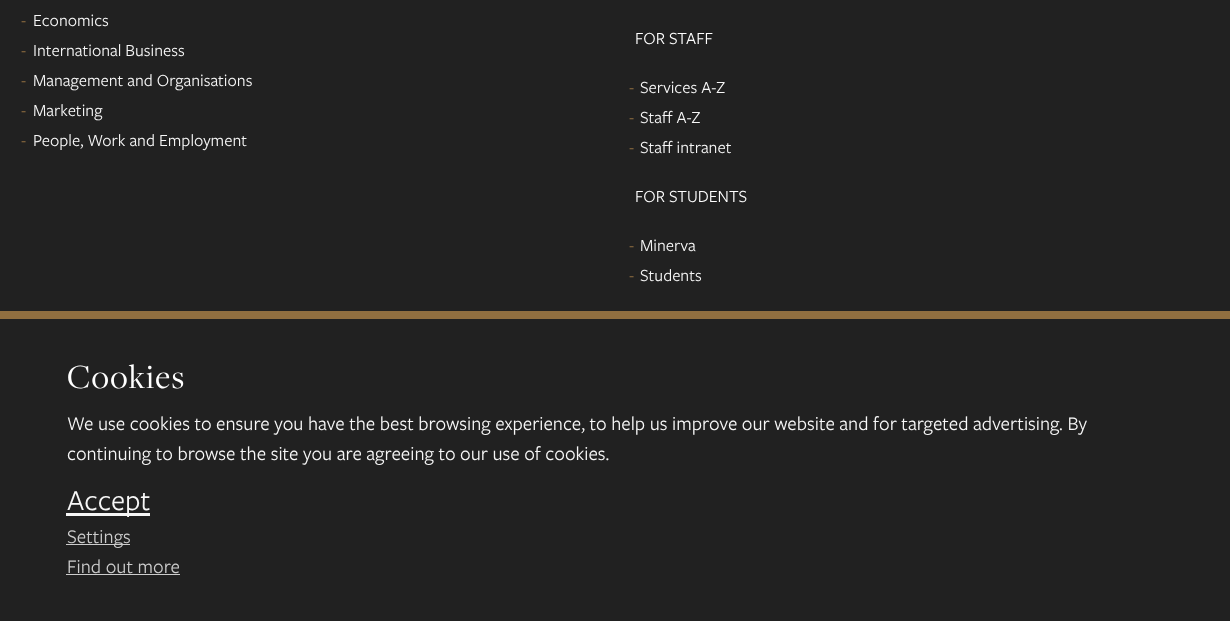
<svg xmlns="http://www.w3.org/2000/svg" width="1230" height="621">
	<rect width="100%" height="100%" fill="#212121" />
	<text x="21" y="26" font-family="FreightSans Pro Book" font-size="17.5" fill="#916F40">-</text>
	<text x="33" y="26" font-family="FreightSans Pro Book" font-size="17.5" fill="#F7F7F7">Economics</text>
	<text x="21" y="56" font-family="FreightSans Pro Book" font-size="17.5" fill="#916F40">-</text>
	<text x="33" y="56" font-family="FreightSans Pro Book" font-size="17.5" fill="#F7F7F7">International Business</text>
	<text x="21" y="86" font-family="FreightSans Pro Book" font-size="17.5" fill="#916F40">-</text>
	<text x="33" y="86" font-family="FreightSans Pro Book" font-size="17.5" fill="#F7F7F7">Management and Organisations</text>
	<text x="21" y="116" font-family="FreightSans Pro Book" font-size="17.5" fill="#916F40">-</text>
	<text x="33" y="116" font-family="FreightSans Pro Book" font-size="17.5" fill="#F7F7F7">Marketing</text>
	<text x="21" y="146" font-family="FreightSans Pro Book" font-size="17.5" fill="#916F40">-</text>
	<text x="33" y="146" font-family="FreightSans Pro Book" font-size="17.5" fill="#F7F7F7">People, Work and Employment</text>
	<text x="635" y="44" font-family="FreightSans Pro Book" font-size="17.5" fill="#FFFFFF">FOR STAFF</text>
	<text x="629" y="93" font-family="FreightSans Pro Book" font-size="17.5" fill="#916F40">-</text>
	<text x="640" y="93" font-family="FreightSans Pro Book" font-size="17.5" fill="#F7F7F7">Services A-Z</text>
	<text x="629" y="123" font-family="FreightSans Pro Book" font-size="17.5" fill="#916F40">-</text>
	<text x="640" y="123" font-family="FreightSans Pro Book" font-size="17.5" fill="#F7F7F7">Staff A-Z</text>
	<text x="629" y="153" font-family="FreightSans Pro Book" font-size="17.5" fill="#916F40">-</text>
	<text x="640" y="153" font-family="FreightSans Pro Book" font-size="17.5" fill="#F7F7F7">Staff intranet</text>
	<text x="635" y="202" font-family="FreightSans Pro Book" font-size="17.5" fill="#FFFFFF">FOR STUDENTS</text>
	<text x="629" y="251" font-family="FreightSans Pro Book" font-size="17.5" fill="#916F40">-</text>
	<text x="640" y="251" font-family="FreightSans Pro Book" font-size="17.5" fill="#F7F7F7">Minerva</text>
	<text x="629" y="281" font-family="FreightSans Pro Book" font-size="17.5" fill="#916F40">-</text>
	<text x="640" y="281" font-family="FreightSans Pro Book" font-size="17.5" fill="#F7F7F7">Students</text>
	<rect x="0" y="311" width="1230" height="8" fill="#916F40" />
	<text x="67" y="388" font-family="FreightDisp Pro" font-size="35" letter-spacing="1.25" fill="#FFFFFF">Cookies</text>
	<g font-family="FreightSans Pro Book" font-size="20" fill="#F7F7F7">
		<text x="67" y="430">We use cookies to ensure you have the best browsing experience, to help us improve our website and for targeted advertising. By</text>
		<text x="67" y="460">continuing to browse the site you are agreeing to our use of cookies.</text>
	</g>
	<rect x="66" y="513" width="84" height="3" fill="#F7F7F7" />
	<text x="67" y="510" font-family="FreightSans Pro Book" font-size="30" fill="#F7F7F7">Accept</text>
	<rect x="66" y="544" width="64" height="1" fill="#CCCCCC" />
	<g font-family="FreightSans Pro Book" font-size="20" fill="#CCCCCC">
		<text x="67" y="543">Settings</text>
		<text x="67" y="573">Find out more</text>
	</g>
	<rect x="66" y="574" width="114" height="1" fill="#CCCCCC" />
</svg>
